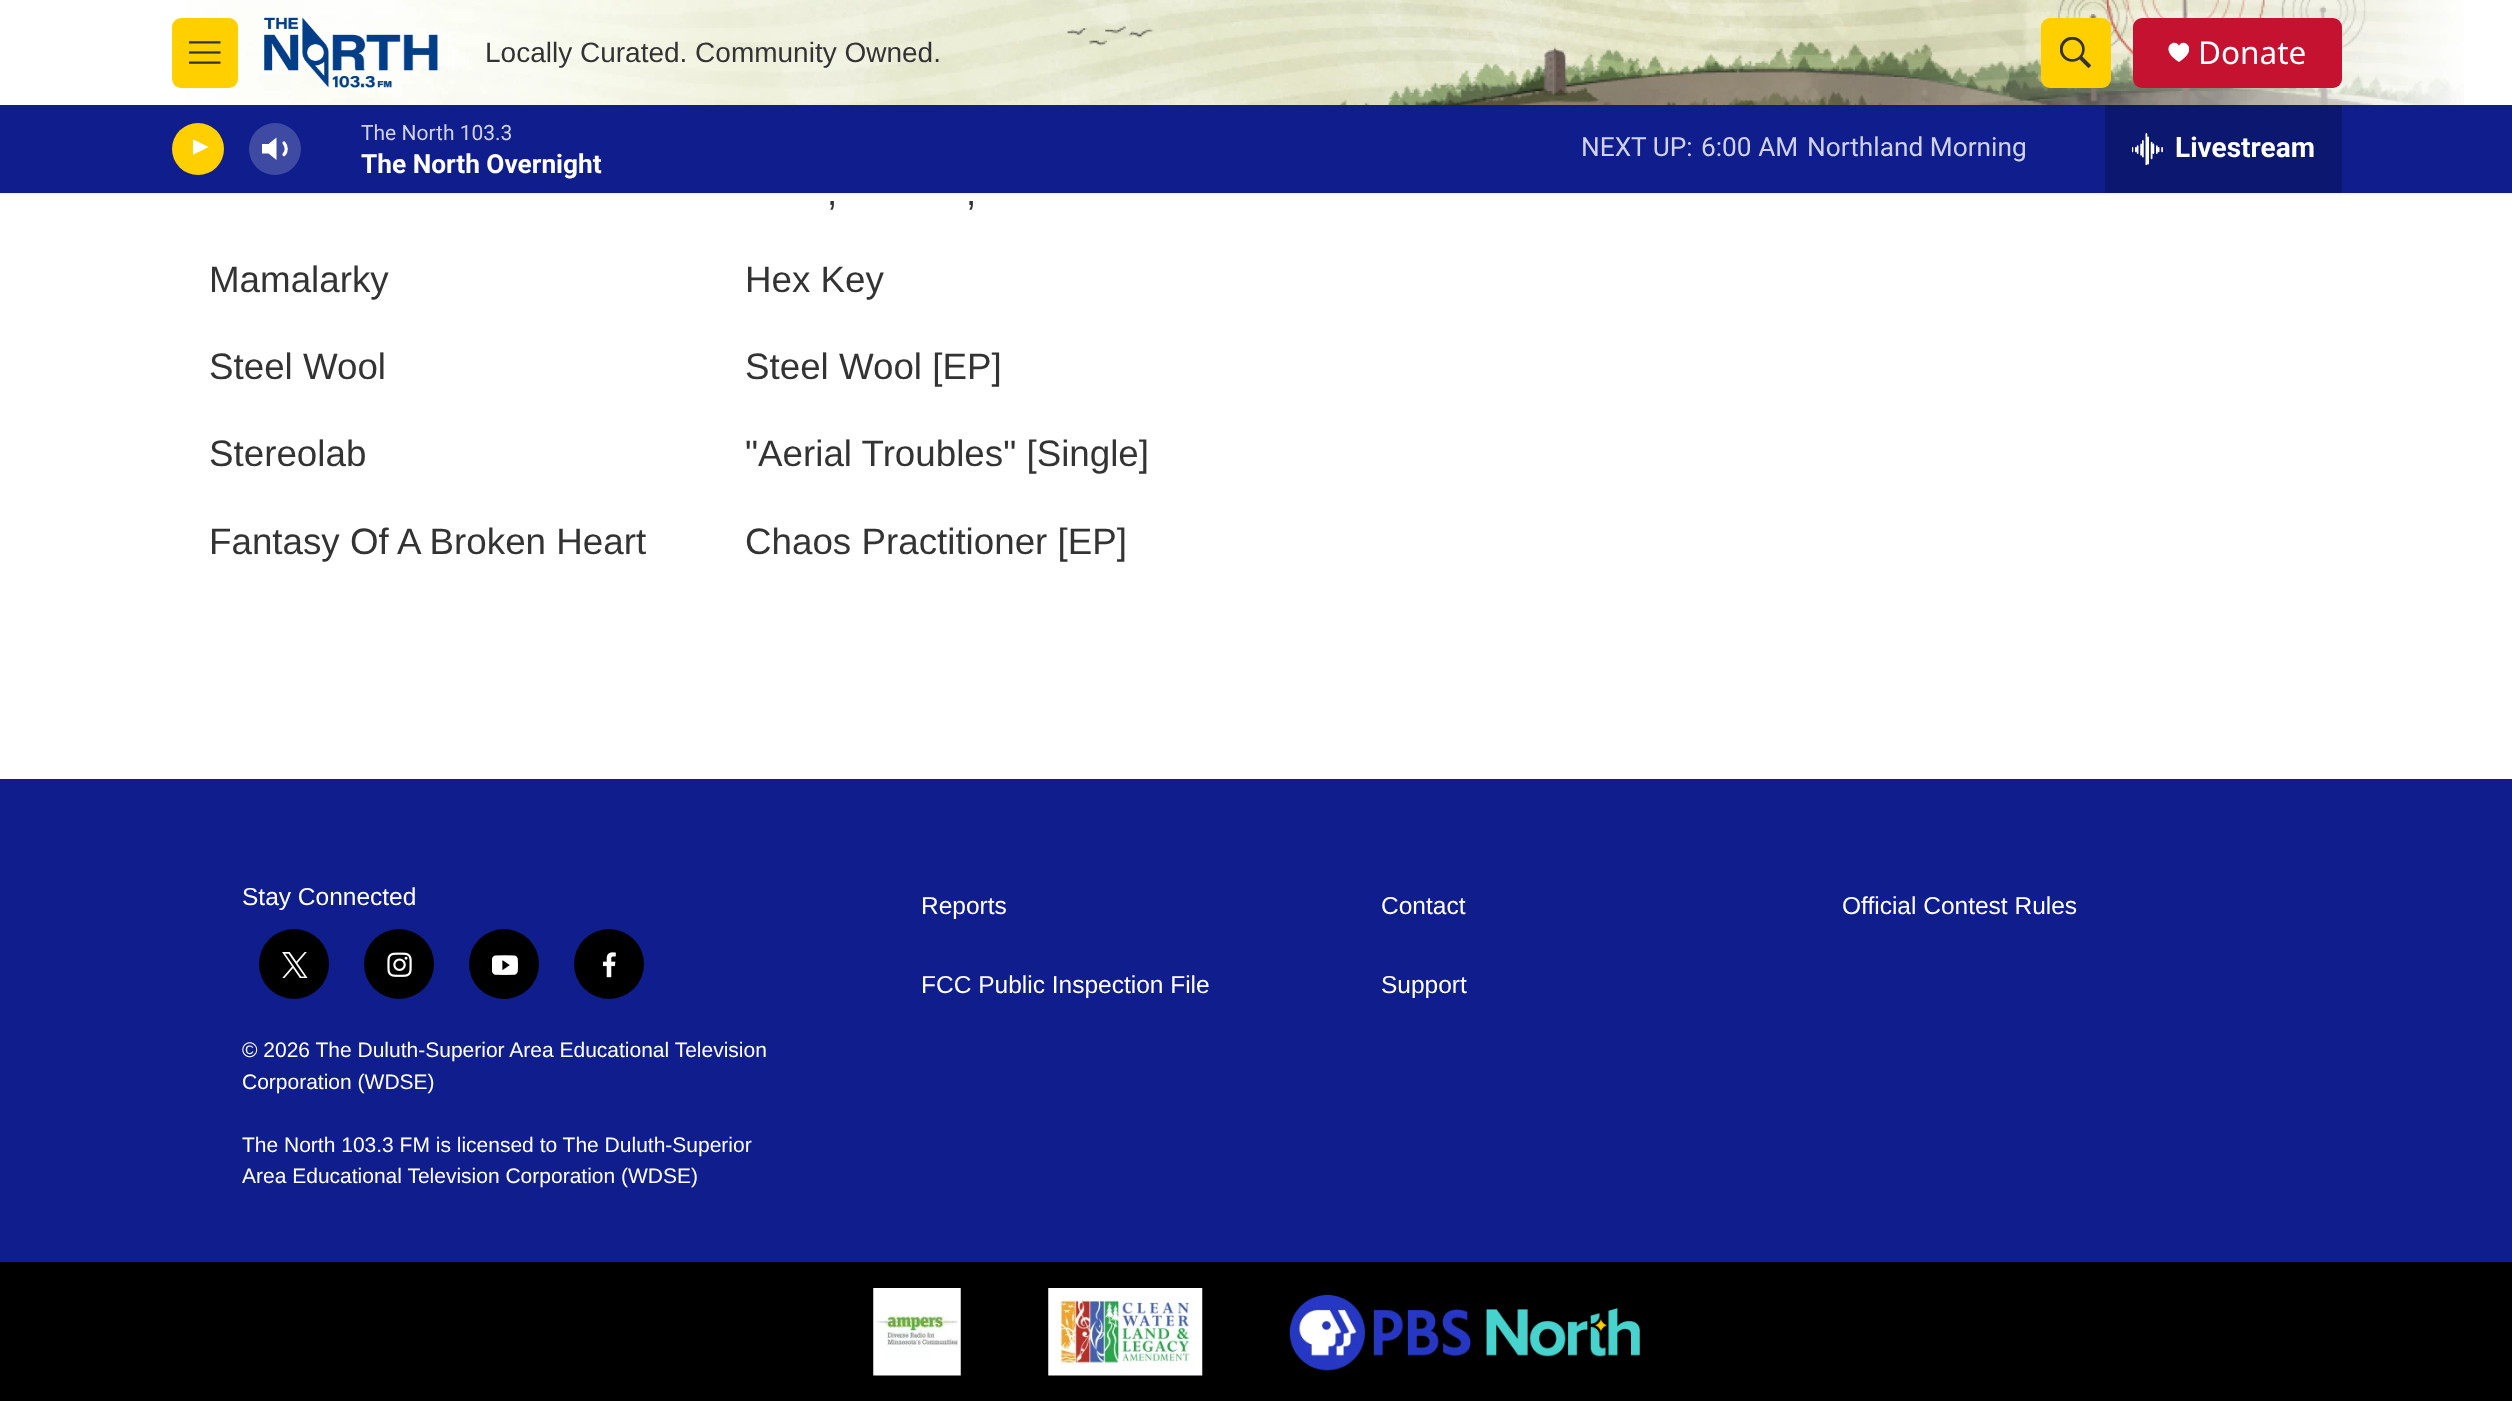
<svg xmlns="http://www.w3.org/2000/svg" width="2512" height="1401">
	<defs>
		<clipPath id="clip1"><rect x="2168" y="42" width="21" height="21" /></clipPath>
		<clipPath id="clip2"><rect x="193" y="137" width="20" height="26" /></clipPath>
	</defs>
	<rect width="100%" height="100%" fill="#FFFFFF" />
	<rect x="0" y="193" width="2512" height="2" fill="#F5F5F5" />
	<image x="186" y="0" width="2278" height="105" href="assets/img1.png" />
	<rect x="172" y="18" width="66" height="70" rx="9" fill="#FFCF00" />
	<image x="189" y="41" width="32" height="23" href="assets/img2.png" />
	<image x="264" y="17" width="174" height="71" href="assets/img3.png" />
	<text x="485" y="62" font-family="Liberation Sans" font-size="28" fill="#333333">Locally Curated. Community Owned.</text>
	<rect x="2041" y="18" width="70" height="70" rx="9" fill="#FFCF00" />
	<image x="2060" y="37" width="31" height="31" href="assets/img4.png" />
	<rect x="2133" y="18" width="209" height="70" rx="9" fill="#C41230" />
	<g clip-path="url(#clip1)">
		<path d="M2179 46C2175.5 37 2157 48.5 2179 62C2200.5 48.5 2182 37 2179 46Z" fill="#FFFFFF" />
	</g>
	<text x="2198" y="64" font-family="Noto Sans" font-size="31.5" fill="#FFFFFF">Donate</text>
	<rect x="0" y="105" width="2512" height="88" fill="#0F1E8C" />
	<circle cx="198" cy="149" r="26" fill="#FFCF00" />
	<g clip-path="url(#clip2)">
		<path d="M191.5 138.5L208.5 147L191.5 155.5Z" fill="#FFFFFF" />
	</g>
	<path d="M276.5 137.5L268.5 144H262V153.5H268.5L276.5 160Z" fill="#FFFFFF" />
	<path d="M284 143C287 146.5 287 151.5 284 154.5" fill="none" stroke="#FFFFFF" stroke-width="3.2" stroke-linecap="round" stroke-linejoin="round" />
	<circle cx="275" cy="149" r="26" fill="#FFFFFF" fill-opacity="0.2" />
	<text x="361" y="140" font-family="Roboto" font-size="21" fill="#CFD2E8">The North 103.3</text>
	<text x="361" y="173" font-family="Roboto" font-size="26.25" font-weight="700" fill="#FFFFFF">The North Overnight</text>
	<g font-family="Roboto" font-size="26.25" fill="#CFD2E8">
		<text x="1581" y="156">NEXT UP:</text>
		<text x="1701" y="156">6:00 AM</text>
		<text x="1807" y="156">Northland Morning</text>
	</g>
	<rect x="2105" y="105" width="237" height="88" fill="#0C1870" />
	<image x="2132" y="133" width="31" height="32" href="assets/img5.png" />
	<text x="2175" y="157" font-family="Roboto" font-size="28" font-weight="700" fill="#FFFFFF">Livestream</text>
	<g font-family="Liberation Sans" font-size="36.75" fill="#333333">
		<text x="827" y="205">,</text>
		<text x="966" y="205">,</text>
		<text x="209" y="292">Mamalarky</text>
		<text x="745" y="292">Hex Key</text>
		<text x="209" y="379">Steel Wool</text>
		<text x="745" y="379">Steel Wool [EP]</text>
		<text x="209" y="466">Stereolab</text>
		<text x="745" y="466">"Aerial Troubles" [Single]</text>
		<text x="209" y="554">Fantasy Of A Broken Heart</text>
		<text x="745" y="554">Chaos Practitioner [EP]</text>
	</g>
	<rect x="0" y="779" width="2512" height="483" fill="#0F1E8C" />
	<text x="242" y="905" font-family="Liberation Sans" font-size="24.5" fill="#FFFFFF">Stay Connected</text>
	<circle cx="294" cy="964" r="35" fill="#000000" />
	<image x="282" y="952" width="26" height="26" href="assets/img6.png" />
	<circle cx="399" cy="964" r="35" fill="#000000" />
	<image x="387" y="952" width="25" height="25" href="assets/img7.png" />
	<circle cx="504" cy="964" r="35" fill="#000000" />
	<image x="492" y="955" width="26" height="20" href="assets/img8.png" />
	<circle cx="609" cy="964" r="35" fill="#000000" />
	<image x="602" y="952" width="14" height="26" href="assets/img9.png" />
	<g font-family="Liberation Sans" font-size="21" fill="#FFFFFF">
		<text x="242" y="1057">© 2026 The Duluth-Superior Area Educational Television</text>
		<text x="242" y="1089">Corporation (WDSE)</text>
		<text x="242" y="1152">The North 103.3 FM is licensed to The Duluth-Superior</text>
		<text x="242" y="1183">Area Educational Television Corporation (WDSE)</text>
	</g>
	<g font-family="Liberation Sans" font-size="24.5" fill="#FFFFFF">
		<text x="921" y="914">Reports</text>
		<text x="1381" y="914">Contact</text>
		<text x="1842" y="914">Official Contest Rules</text>
		<text x="921" y="993">FCC Public Inspection File</text>
		<text x="1381" y="993">Support</text>
	</g>
	<rect x="0" y="1262" width="2512" height="139" fill="#000000" />
	<image x="873" y="1288" width="88" height="88" href="assets/img10.png" />
	<image x="1048" y="1288" width="155" height="88" href="assets/img11.png" />
	<image x="1289" y="1295" width="351" height="76" href="assets/img12.png" />
</svg>
